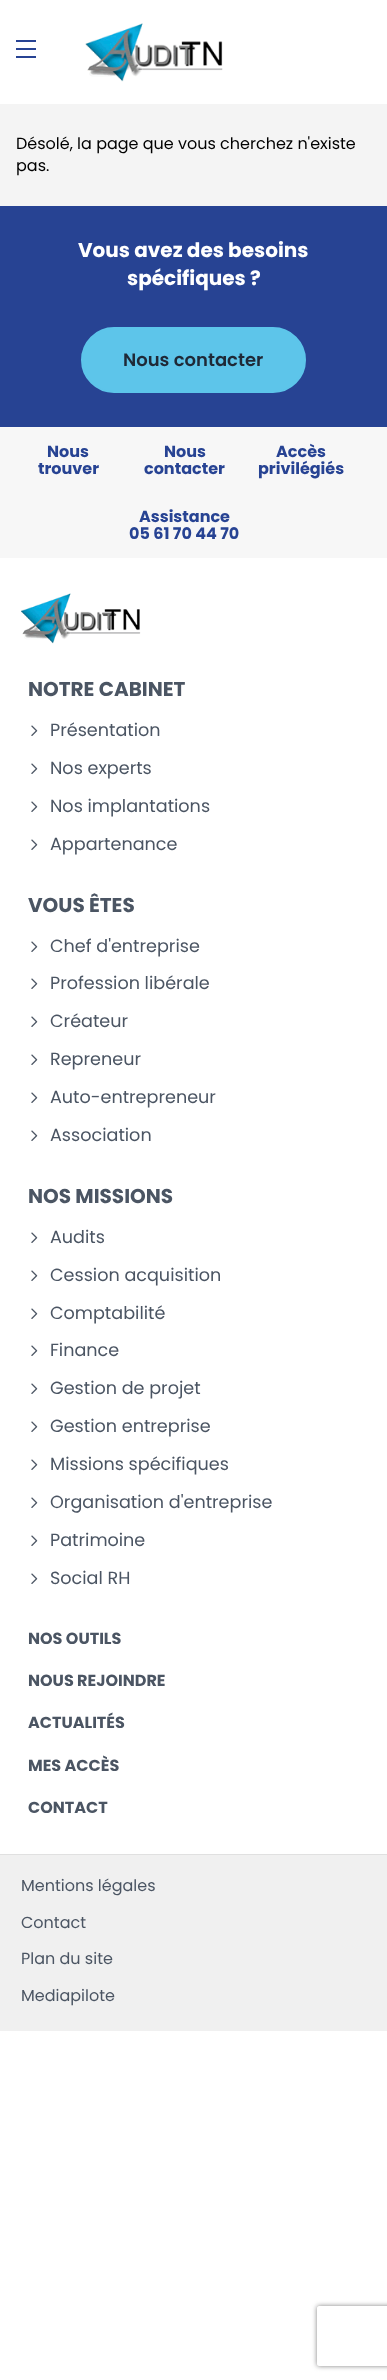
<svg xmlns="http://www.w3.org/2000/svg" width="387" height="2380">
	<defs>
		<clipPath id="clip1"><path d="M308 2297H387V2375H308ZM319 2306H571C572 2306 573 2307 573 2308V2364C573 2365 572 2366 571 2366H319C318 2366 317 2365 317 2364V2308C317 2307 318 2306 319 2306Z" clip-rule="evenodd" /></clipPath>
	</defs>
	<rect width="100%" height="100%" fill="#FFFFFF" />
	<rect x="16" y="48" width="20" height="2" fill="#274393" />
	<rect x="16" y="40" width="20" height="2" fill="#274393" />
	<rect x="16" y="56" width="20" height="2" fill="#274393" />
	<image x="85" y="23" width="138" height="59" href="assets/img1.png" />
	<rect x="0" y="104" width="387" height="102" fill="#F4F4F4" />
	<g font-family="Poppins" font-size="16" fill="#000000">
		<text x="16" y="149">Désolé, la page que vous cherchez n'existe</text>
		<text x="16" y="171">pas.</text>
	</g>
	<rect x="0" y="206" width="387" height="221" fill="#274393" />
	<g font-family="Poppins" font-size="20" font-weight="700" fill="#FFFFFF">
		<text x="78" y="257">Vous avez des besoins</text>
		<text x="127" y="285">spécifiques ?</text>
	</g>
	<rect x="82" y="328" width="223" height="64" rx="32" fill="#5DC5EA" stroke="#5DC5EA" stroke-width="2" />
	<text x="123" y="366" font-family="Poppins" font-size="18" font-weight="600" fill="#1F2937">Nous contacter</text>
	<rect x="0" y="428" width="387" height="130" fill="#F7F7F7" />
	<rect x="0" y="427" width="387" height="1" fill="#F9F9F9" />
	<g font-family="Poppins" font-size="16" font-weight="700" fill="#274393">
		<text x="47" y="457">Nous</text>
		<text x="38" y="474">trouver</text>
		<text x="164" y="457">Nous</text>
		<text x="144" y="474">contacter</text>
		<text x="276" y="457">Accès</text>
		<text x="258" y="474">privilégiés</text>
		<text x="139" y="522">Assistance</text>
		<text x="129" y="539">05 61 70 44 70</text>
	</g>
	<image x="21" y="593" width="120" height="51" href="assets/img2.png" />
	<text x="28" y="696" font-family="Poppins" font-size="20" font-weight="700" fill="#4B5563">NOTRE CABINET</text>
	<image x="31" y="725" width="7" height="11" href="assets/img3.png" />
	<text x="50" y="736" font-family="Poppins" font-size="17.6" fill="#4B5563">Présentation</text>
	<image x="31" y="763" width="7" height="11" href="assets/img3.png" />
	<text x="50" y="774" font-family="Poppins" font-size="17.6" fill="#4B5563">Nos experts</text>
	<image x="31" y="801" width="7" height="11" href="assets/img3.png" />
	<text x="50" y="812" font-family="Poppins" font-size="17.6" fill="#4B5563">Nos implantations</text>
	<image x="31" y="839" width="7" height="11" href="assets/img3.png" />
	<text x="50" y="850" font-family="Poppins" font-size="17.6" fill="#4B5563">Appartenance</text>
	<text x="28" y="912" font-family="Poppins" font-size="20" font-weight="700" fill="#4B5563">VOUS ÊTES</text>
	<image x="31" y="941" width="7" height="11" href="assets/img3.png" />
	<text x="50" y="952" font-family="Poppins" font-size="17.6" fill="#4B5563">Chef d'entreprise</text>
	<image x="31" y="978" width="7" height="11" href="assets/img3.png" />
	<text x="50" y="989" font-family="Poppins" font-size="17.6" fill="#4B5563">Profession libérale</text>
	<image x="31" y="1016" width="7" height="11" href="assets/img3.png" />
	<text x="50" y="1027" font-family="Poppins" font-size="17.6" fill="#4B5563">Créateur</text>
	<image x="31" y="1054" width="7" height="11" href="assets/img3.png" />
	<text x="50" y="1065" font-family="Poppins" font-size="17.6" fill="#4B5563">Repreneur</text>
	<image x="31" y="1092" width="7" height="11" href="assets/img3.png" />
	<text x="50" y="1103" font-family="Poppins" font-size="17.6" fill="#4B5563">Auto-entrepreneur</text>
	<image x="31" y="1130" width="7" height="11" href="assets/img3.png" />
	<text x="50" y="1141" font-family="Poppins" font-size="17.6" fill="#4B5563">Association</text>
	<text x="28" y="1203" font-family="Poppins" font-size="20" font-weight="700" fill="#4B5563">NOS MISSIONS</text>
	<image x="31" y="1232" width="7" height="11" href="assets/img3.png" />
	<text x="50" y="1243" font-family="Poppins" font-size="17.6" fill="#4B5563">Audits</text>
	<image x="31" y="1270" width="7" height="11" href="assets/img3.png" />
	<text x="50" y="1281" font-family="Poppins" font-size="17.6" fill="#4B5563">Cession acquisition</text>
	<image x="31" y="1308" width="7" height="11" href="assets/img3.png" />
	<text x="50" y="1319" font-family="Poppins" font-size="17.6" fill="#4B5563">Comptabilité</text>
	<image x="31" y="1345" width="7" height="11" href="assets/img3.png" />
	<text x="50" y="1356" font-family="Poppins" font-size="17.6" fill="#4B5563">Finance</text>
	<image x="31" y="1383" width="7" height="11" href="assets/img3.png" />
	<text x="50" y="1394" font-family="Poppins" font-size="17.6" fill="#4B5563">Gestion de projet</text>
	<image x="31" y="1421" width="7" height="11" href="assets/img3.png" />
	<text x="50" y="1432" font-family="Poppins" font-size="17.6" fill="#4B5563">Gestion entreprise</text>
	<image x="31" y="1459" width="7" height="11" href="assets/img3.png" />
	<text x="50" y="1470" font-family="Poppins" font-size="17.6" fill="#4B5563">Missions spécifiques</text>
	<image x="31" y="1497" width="7" height="11" href="assets/img3.png" />
	<text x="50" y="1508" font-family="Poppins" font-size="17.6" fill="#4B5563">Organisation d'entreprise</text>
	<image x="31" y="1535" width="7" height="11" href="assets/img3.png" />
	<text x="50" y="1546" font-family="Poppins" font-size="17.6" fill="#4B5563">Patrimoine</text>
	<image x="31" y="1573" width="7" height="11" href="assets/img3.png" />
	<text x="50" y="1584" font-family="Poppins" font-size="17.6" fill="#4B5563">Social RH</text>
	<g font-family="Poppins" font-size="16" font-weight="700" fill="#4B5563">
		<text x="28" y="1644">NOS OUTILS</text>
		<text x="28" y="1686">NOUS REJOINDRE</text>
		<text x="28" y="1728">ACTUALITÉS</text>
		<text x="28" y="1771">MES ACCÈS</text>
		<text x="28" y="1813">CONTACT</text>
	</g>
	<rect x="0" y="1855" width="387" height="176" fill="#F0F0F0" />
	<rect x="0" y="1854" width="387" height="1" fill="#E0E0E0" />
	<g font-family="Poppins" font-size="16" fill="#4B5563">
		<text x="21" y="1891">Mentions légales</text>
		<text x="21" y="1928">Contact</text>
		<text x="21" y="1964">Plan du site</text>
		<text x="21" y="2001">Mediapilote</text>
	</g>
	<g clip-path="url(#clip1)">
		<rect x="317" y="2306" width="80" height="60" rx="2" fill="#808080" filter="blur(2.5px)" />
	</g>
</svg>
